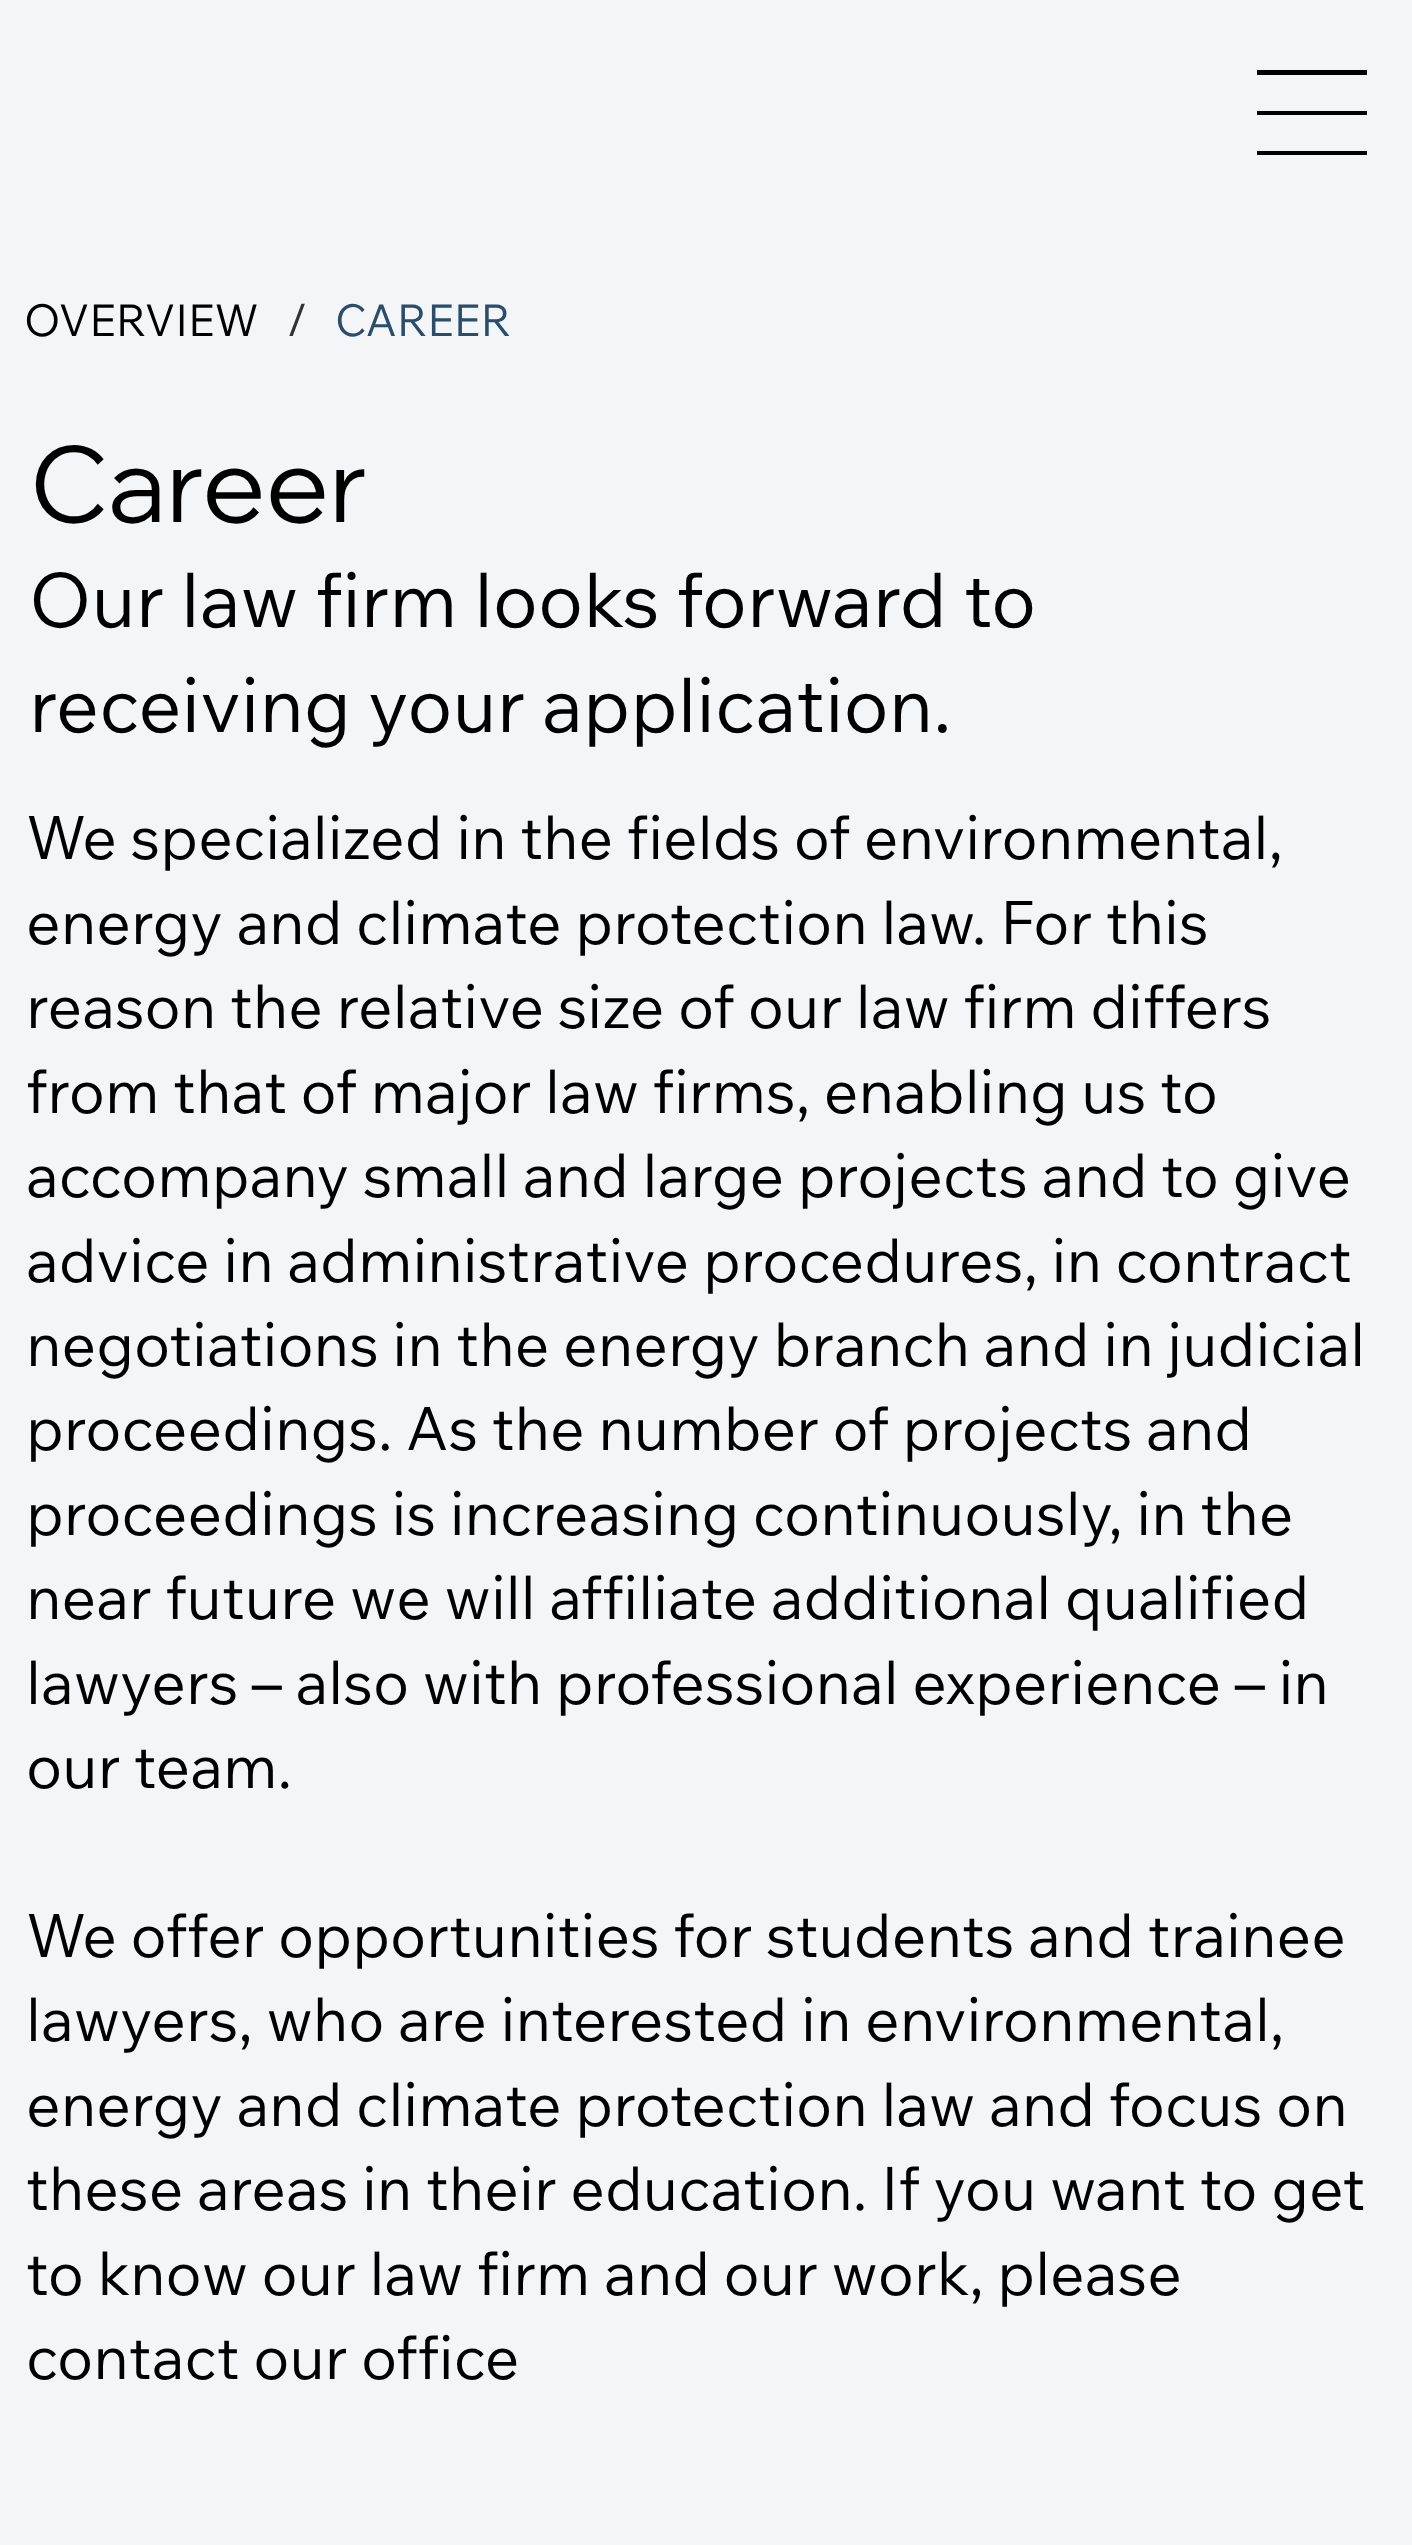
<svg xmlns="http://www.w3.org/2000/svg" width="1412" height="2545">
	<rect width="100%" height="100%" fill="#F3F5F6" />
	<rect x="1257" y="70" width="110" height="5" fill="#000000" />
	<rect x="1257" y="111" width="110" height="4" fill="#000000" />
	<rect x="1257" y="151" width="110" height="4" fill="#000000" />
	<text x="24" y="336" font-family="Wix Madefor Text" font-size="44" fill="#000000">OVERVIEW</text>
	<text x="287" y="336" font-family="Wix Madefor Text" font-size="44" fill="#323232">/</text>
	<text x="335" y="336" font-family="Wix Madefor Text" font-size="44" fill="#294D6B">CAREER</text>
	<text x="30" y="522" font-family="Wix Madefor Display" font-size="105.5" fill="#000000">Career</text>
	<g font-family="Wix Madefor Text" font-size="75.4" fill="#000000">
		<text x="29" y="627">Our law firm looks forward to</text>
		<text x="29" y="732">receiving your application.</text>
	</g>
	<g font-family="Wix Madefor Text" font-size="60.3" fill="#000000">
		<text x="26" y="859">We specialized in the fields of environmental,</text>
		<text x="26" y="944">energy and climate protection law. For this</text>
		<text x="26" y="1028">reason the relative size of our law firm differs</text>
		<text x="26" y="1113">from that of major law firms, enabling us to</text>
		<text x="26" y="1197">accompany small and large projects and to give</text>
		<text x="26" y="1282">advice in administrative procedures, in contract</text>
		<text x="26" y="1366">negotiations in the energy branch and in judicial</text>
		<text x="26" y="1450">proceedings. As the number of projects and</text>
		<text x="26" y="1535">proceedings is increasing continuously, in the</text>
		<text x="26" y="1619">near future we will affiliate additional qualified</text>
		<text x="26" y="1704">lawyers – also with professional experience – in</text>
		<text x="26" y="1788">our team.</text>
		<text x="26" y="1957">We offer opportunities for students and trainee</text>
		<text x="26" y="2041">lawyers, who are interested in environmental,</text>
		<text x="26" y="2126">energy and climate protection law and focus on</text>
		<text x="26" y="2210">these areas in their education. If you want to get</text>
		<text x="26" y="2295">to know our law firm and our work, please</text>
		<text x="26" y="2379">contact our office</text>
	</g>
</svg>
